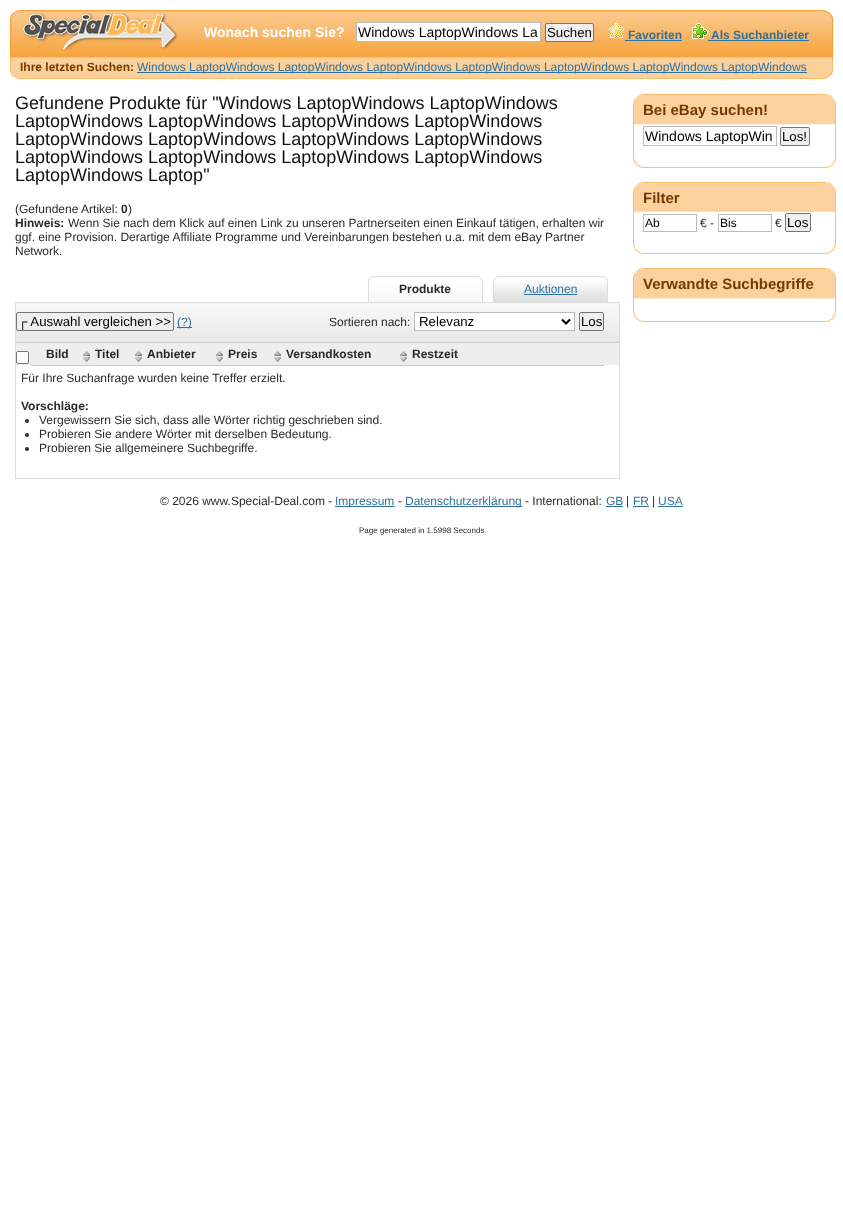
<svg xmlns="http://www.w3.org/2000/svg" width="843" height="1229">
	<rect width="100%" height="100%" fill="#FFFFFF" />
	<image x="20" y="10" width="813" height="69" href="assets/img1.png" />
	<image x="10" y="10" width="10" height="69" href="assets/img2.png" />
	<image x="22" y="13" width="156" height="37" href="assets/img3.png" />
	<text x="204" y="37" font-family="Liberation Sans" font-size="14" font-weight="700" fill="#FFFFFF">Wonach suchen Sie?</text>
	<rect x="356.5" y="22.5" width="184" height="19" fill="#FFFFFF" stroke="#BBBBBB" />
	<text x="358" y="37" font-family="Liberation Sans" font-size="14" fill="#000000">Windows LaptopWindows La</text>
	<rect x="545.5" y="23.5" width="48" height="18" rx="1.5" fill="#EFEFEF" stroke="#767676" />
	<text x="547" y="37" font-family="Liberation Sans" font-size="13.25" fill="#000000">Suchen</text>
	<image x="609" y="23" width="15" height="15" href="assets/img4.png" />
	<text x="628" y="39" font-family="Liberation Sans" font-size="12" font-weight="700" fill="#2F729E">Favoriten</text>
	<rect x="625" y="40" width="57" height="1" fill="#2F729E" />
	<image x="692" y="23" width="16" height="16" href="assets/img5.png" />
	<text x="711" y="39" font-family="Liberation Sans" font-size="12" font-weight="700" fill="#2F729E">Als Suchanbieter</text>
	<rect x="708" y="40" width="101" height="1" fill="#2F729E" />
	<text x="20" y="71" font-family="Liberation Sans" font-size="12" font-weight="700" fill="#753A00">Ihre letzten Suchen:</text>
	<rect x="137" y="72" width="670" height="1" fill="#2F729E" />
	<text x="137" y="71" font-family="Liberation Sans" font-size="12" fill="#2F729E">Windows LaptopWindows LaptopWindows LaptopWindows LaptopWindows LaptopWindows LaptopWindows LaptopWindows</text>
	<g font-family="Liberation Sans" font-size="18" fill="#111111">
		<text x="15" y="109">Gefundene Produkte für "Windows LaptopWindows LaptopWindows</text>
		<text x="15" y="127">LaptopWindows LaptopWindows LaptopWindows LaptopWindows</text>
		<text x="15" y="145">LaptopWindows LaptopWindows LaptopWindows LaptopWindows</text>
		<text x="15" y="163">LaptopWindows LaptopWindows LaptopWindows LaptopWindows</text>
		<text x="15" y="181">LaptopWindows Laptop"</text>
	</g>
	<text x="15" y="213" font-family="Liberation Sans" font-size="12" fill="#2A2A2A">(Gefundene Artikel:</text>
	<text x="121" y="213" font-family="Liberation Sans" font-size="12" font-weight="700" fill="#2A2A2A">0</text>
	<text x="128" y="213" font-family="Liberation Sans" font-size="12" fill="#2A2A2A">)</text>
	<text x="15" y="227" font-family="Liberation Sans" font-size="12" font-weight="700" fill="#2A2A2A">Hinweis:</text>
	<g font-family="Liberation Sans" font-size="12" fill="#2A2A2A">
		<text x="68" y="227">Wenn Sie nach dem Klick auf einen Link zu unseren Partnerseiten einen Einkauf tätigen, erhalten wir</text>
		<text x="15" y="241">ggf. eine Provision. Derartige Affiliate Programme und Vereinbarungen bestehen u.a. mit dem eBay Partner</text>
		<text x="15" y="255">Network.</text>
	</g>
	<image x="368" y="276" width="115" height="26" href="assets/img6.png" />
	<text x="399" y="293" font-family="Liberation Sans" font-size="12" font-weight="700" fill="#2A2A2A">Produkte</text>
	<image x="493" y="276" width="115" height="26" href="assets/img7.png" />
	<text x="524" y="293" font-family="Liberation Sans" font-size="12" fill="#2F729E">Auktionen</text>
	<rect x="524" y="294" width="53" height="1" fill="#2F729E" />
	<rect x="619" y="302" width="1" height="177" fill="#DDDDDD" />
	<rect x="15" y="478" width="605" height="1" fill="#DDDDDD" />
	<rect x="15" y="302" width="1" height="177" fill="#DDDDDD" />
	<image x="16" y="302" width="603" height="40" href="assets/img8.png" />
	<rect x="16" y="342" width="603" height="1" fill="#CCCCCC" />
	<rect x="16.5" y="312.5" width="157" height="18" rx="1.5" fill="#EFEFEF" stroke="#767676" />
	<text x="18" y="326" font-family="Liberation Sans" font-size="13.25" fill="#000000">┌ Auswahl vergleichen &gt;&gt;</text>
	<rect x="177" y="327" width="15" height="1" fill="#2F729E" />
	<text x="177" y="326" font-family="Liberation Sans" font-size="12" fill="#2F729E">(?)</text>
	<text x="329" y="326" font-family="Liberation Sans" font-size="12" fill="#2A2A2A">Sortieren nach:</text>
	<rect x="414.5" y="312.5" width="160" height="18" fill="#FFFFFF" stroke="#BBBBBB" />
	<path d="M562 319.5L566 323.5L570 319.5" fill="none" stroke="#000000" stroke-width="2" />
	<text x="419" y="326" font-family="Liberation Sans" font-size="13.25" fill="#000000">Relevanz</text>
	<rect x="579.5" y="312.5" width="24" height="18" rx="1.5" fill="#EFEFEF" stroke="#767676" />
	<text x="581" y="326" font-family="Liberation Sans" font-size="13.25" fill="#000000">Los</text>
	<rect x="16" y="343" width="603" height="22" fill="#EEEEEE" />
	<rect x="16.5" y="351.5" width="12" height="12" rx="1.5" fill="#FFFFFF" stroke="#767676" />
	<text x="46" y="358" font-family="Liberation Sans" font-size="12" font-weight="700" fill="#2A2A2A">Bild</text>
	<image x="83" y="351" width="7" height="11" href="assets/img9.png" />
	<text x="95" y="358" font-family="Liberation Sans" font-size="12" font-weight="700" fill="#2A2A2A">Titel</text>
	<image x="135" y="351" width="7" height="11" href="assets/img9.png" />
	<text x="147" y="358" font-family="Liberation Sans" font-size="12" font-weight="700" fill="#2A2A2A">Anbieter</text>
	<image x="216" y="351" width="7" height="11" href="assets/img9.png" />
	<text x="228" y="358" font-family="Liberation Sans" font-size="12" font-weight="700" fill="#2A2A2A">Preis</text>
	<image x="274" y="351" width="7" height="11" href="assets/img9.png" />
	<text x="286" y="358" font-family="Liberation Sans" font-size="12" font-weight="700" fill="#2A2A2A">Versandkosten</text>
	<image x="400" y="351" width="7" height="11" href="assets/img9.png" />
	<text x="412" y="358" font-family="Liberation Sans" font-size="12" font-weight="700" fill="#2A2A2A">Restzeit</text>
	<rect x="31" y="365" width="573" height="1" fill="#CCCCCC" />
	<text x="21" y="382" font-family="Liberation Sans" font-size="12" fill="#2A2A2A">Für Ihre Suchanfrage wurden keine Treffer erzielt.</text>
	<text x="21" y="410" font-family="Liberation Sans" font-size="12" font-weight="700" fill="#2A2A2A">Vorschläge:</text>
	<circle cx="27" cy="421" r="2" fill="#2A2A2A" />
	<text x="39" y="424" font-family="Liberation Sans" font-size="12" fill="#2A2A2A">Vergewissern Sie sich, dass alle Wörter richtig geschrieben sind.</text>
	<circle cx="27" cy="435" r="2" fill="#2A2A2A" />
	<text x="39" y="438" font-family="Liberation Sans" font-size="12" fill="#2A2A2A">Probieren Sie andere Wörter mit derselben Bedeutung.</text>
	<circle cx="27" cy="449" r="2" fill="#2A2A2A" />
	<text x="39" y="452" font-family="Liberation Sans" font-size="12" fill="#2A2A2A">Probieren Sie allgemeinere Suchbegriffe.</text>
	<image x="633" y="94" width="203" height="62" href="assets/img10.png" />
	<text x="643" y="115" font-family="Liberation Sans" font-size="15" font-weight="700" fill="#753A00">Bei eBay suchen!</text>
	<rect x="643.5" y="126.5" width="133" height="19" fill="none" stroke="#BBBBBB" />
	<text x="645" y="141" font-family="Liberation Sans" font-size="14" fill="#000000">Windows LaptopWin</text>
	<rect x="780.5" y="127.5" width="29" height="18" rx="1.5" fill="#EFEFEF" stroke="#767676" />
	<text x="782" y="141" font-family="Liberation Sans" font-size="13.25" fill="#000000">Los!</text>
	<image x="633" y="156" width="203" height="12" href="assets/img11.png" />
	<image x="633" y="182" width="203" height="60" href="assets/img12.png" />
	<text x="643" y="203" font-family="Liberation Sans" font-size="15" font-weight="700" fill="#753A00">Filter</text>
	<rect x="643.5" y="214.5" width="53" height="17" fill="none" stroke="#BBBBBB" />
	<text x="645" y="227" font-family="Liberation Sans" font-size="12" fill="#000000">Ab</text>
	<text x="700" y="227" font-family="Liberation Sans" font-size="12" fill="#2A2A2A">€ -</text>
	<rect x="718.5" y="214.5" width="53" height="17" fill="none" stroke="#BBBBBB" />
	<text x="720" y="227" font-family="Liberation Sans" font-size="12" fill="#000000">Bis</text>
	<text x="775" y="227" font-family="Liberation Sans" font-size="12" fill="#2A2A2A">€</text>
	<rect x="785.5" y="213.5" width="25" height="18" rx="1.5" fill="#EFEFEF" stroke="#767676" />
	<text x="787" y="227" font-family="Liberation Sans" font-size="13.25" fill="#000000">Los</text>
	<image x="633" y="242" width="203" height="12" href="assets/img11.png" />
	<image x="633" y="268" width="203" height="42" href="assets/img13.png" />
	<text x="643" y="289" font-family="Liberation Sans" font-size="15" font-weight="700" fill="#753A00">Verwandte Suchbegriffe</text>
	<image x="633" y="310" width="203" height="12" href="assets/img11.png" />
	<text x="160" y="505" font-family="Liberation Sans" font-size="12" fill="#2A2A2A">© 2026 www.Special-Deal.com -</text>
	<rect x="335" y="506" width="60" height="1" fill="#2F729E" />
	<text x="335" y="505" font-family="Liberation Sans" font-size="12" fill="#2F729E">Impressum</text>
	<text x="398" y="505" font-family="Liberation Sans" font-size="12" fill="#2A2A2A">-</text>
	<rect x="405" y="506" width="117" height="1" fill="#2F729E" />
	<text x="405" y="505" font-family="Liberation Sans" font-size="12" fill="#2F729E">Datenschutzerklärung</text>
	<text x="525" y="505" font-family="Liberation Sans" font-size="12" fill="#2A2A2A">- International:</text>
	<text x="606" y="505" font-family="Liberation Sans" font-size="12" fill="#2F729E">GB</text>
	<rect x="606" y="506" width="17" height="1" fill="#2F729E" />
	<text x="626" y="505" font-family="Liberation Sans" font-size="12" fill="#2A2A2A">|</text>
	<text x="633" y="505" font-family="Liberation Sans" font-size="12" fill="#2F729E">FR</text>
	<rect x="633" y="506" width="16" height="1" fill="#2F729E" />
	<text x="652" y="505" font-family="Liberation Sans" font-size="12" fill="#2A2A2A">|</text>
	<text x="658" y="505" font-family="Liberation Sans" font-size="12" fill="#2F729E">USA</text>
	<rect x="658" y="506" width="25" height="1" fill="#2F729E" />
	<text x="359" y="533" font-family="Liberation Sans" font-size="8" fill="#2A2A2A">Page generated in 1.5998 Seconds</text>
</svg>
